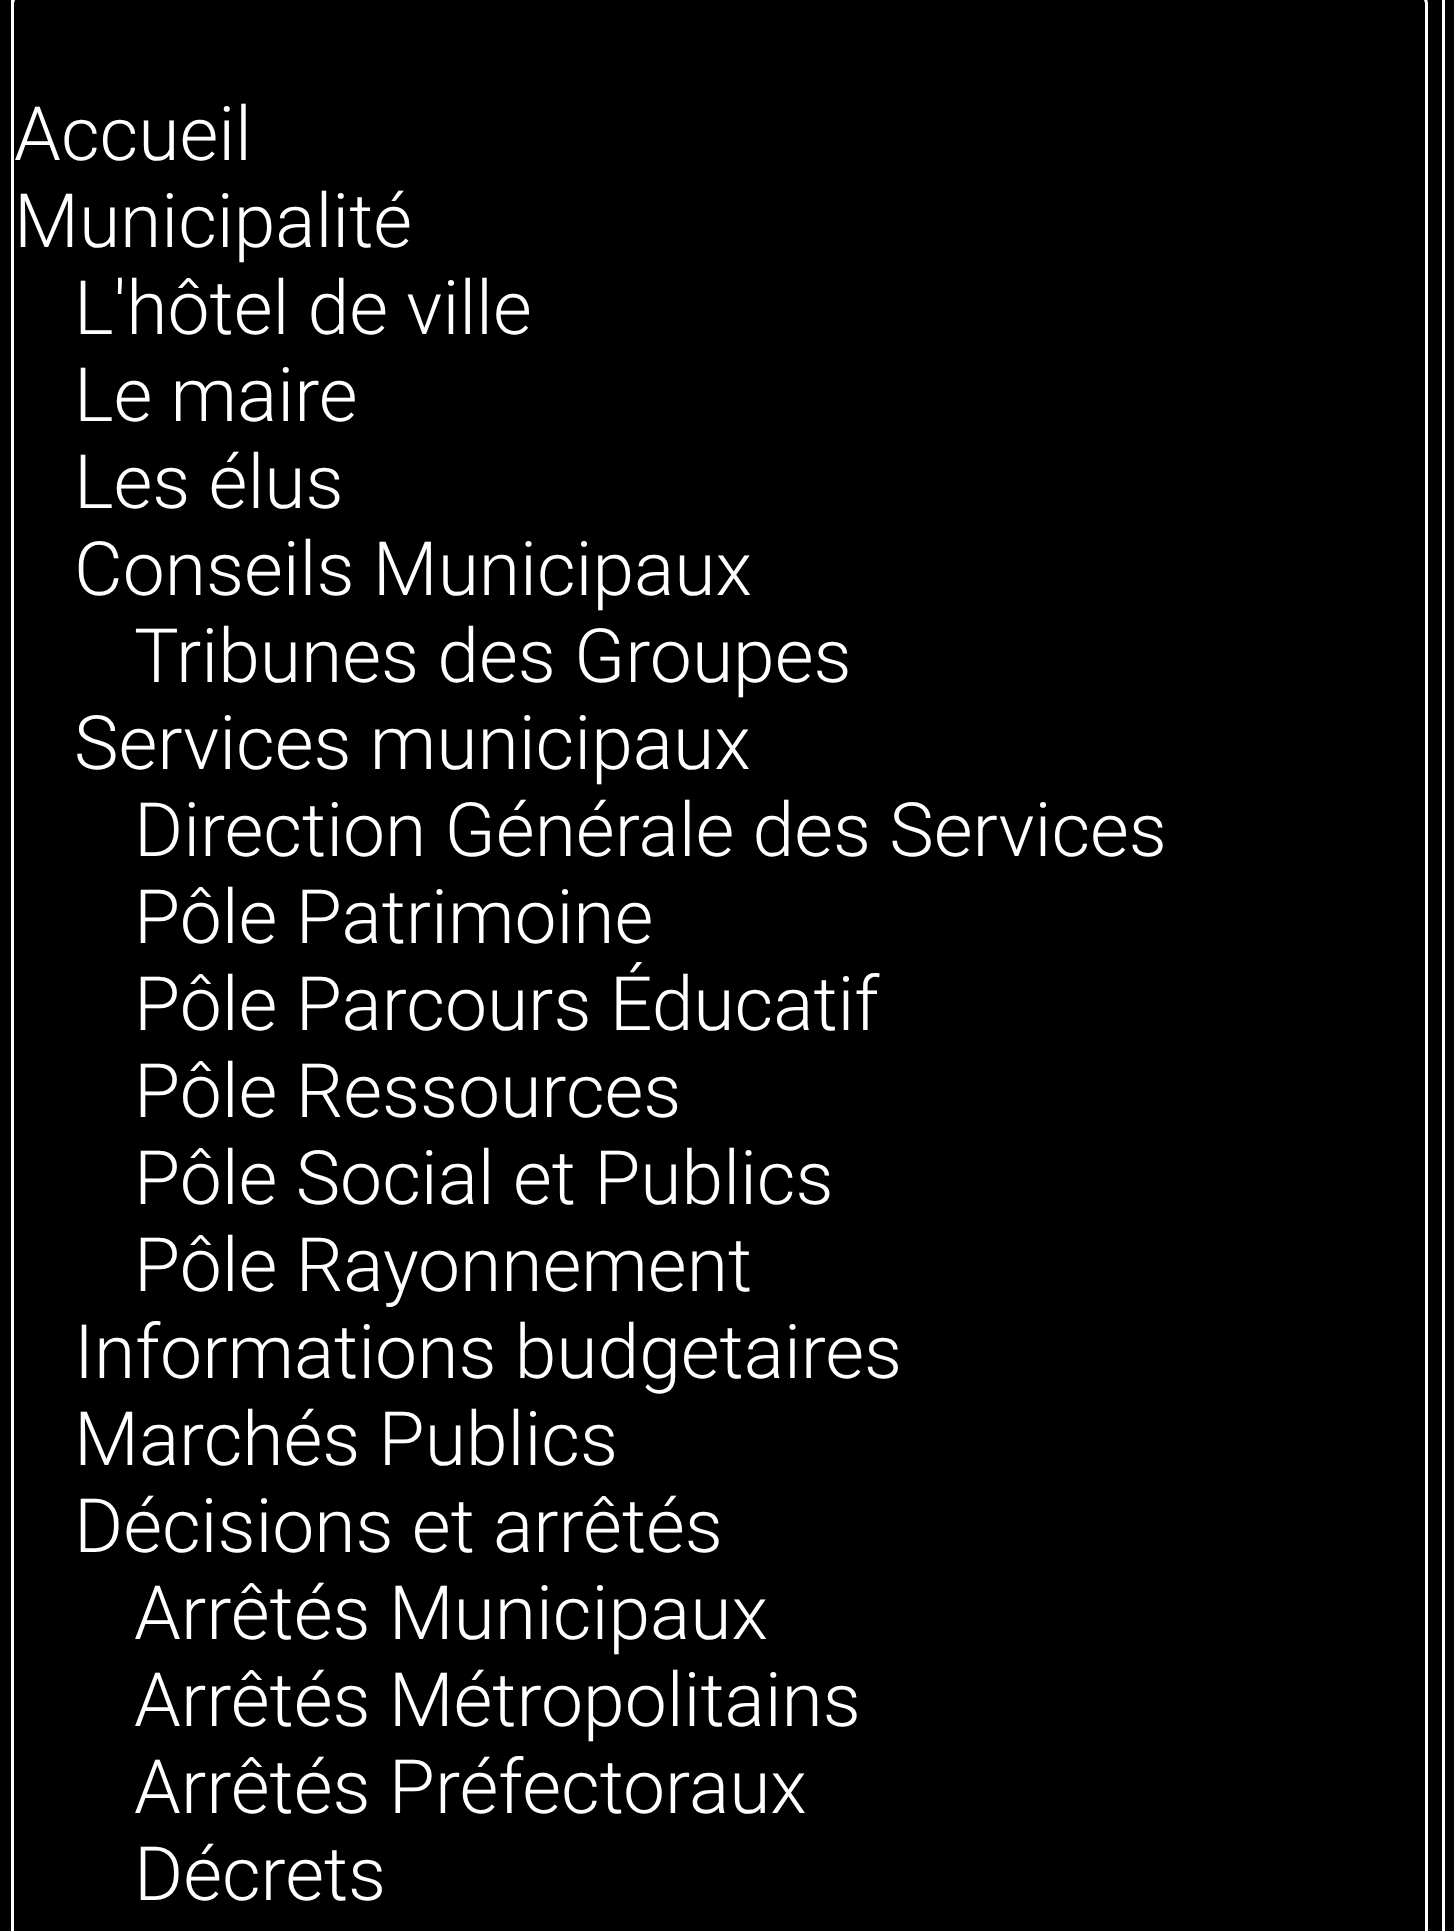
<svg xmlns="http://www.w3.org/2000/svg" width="1454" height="1931">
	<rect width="100%" height="100%" fill="#000000" />
	<rect x="12.5" y="-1.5" width="1431" height="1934" fill="none" stroke="#FFFFFF" stroke-width="3" />
	<rect x="12.5" y="-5.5" width="1414" height="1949" rx="9.5" fill="#000000" stroke="#FFFFFF" stroke-width="3" />
	<rect x="14" y="3" width="1411" height="1" fill="#000000" />
	<g font-family="Roboto" font-size="75" font-weight="300" fill="#FFFFFF">
		<text x="14" y="160">Accueil</text>
		<text x="14" y="247">Municipalité</text>
		<text x="74" y="334">L'hôtel de ville</text>
		<text x="74" y="421">Le maire</text>
		<text x="74" y="508">Les élus</text>
		<text x="74" y="595">Conseils Municipaux</text>
		<text x="134" y="682">Tribunes des Groupes</text>
		<text x="74" y="769">Services municipaux</text>
		<text x="134" y="856">Direction Générale des Services</text>
		<text x="134" y="943">Pôle Patrimoine</text>
		<text x="134" y="1030">Pôle Parcours Éducatif</text>
		<text x="134" y="1117">Pôle Ressources</text>
		<text x="134" y="1204">Pôle Social et Publics</text>
		<text x="134" y="1291">Pôle Rayonnement</text>
		<text x="74" y="1378">Informations budgetaires</text>
		<text x="74" y="1465">Marchés Publics</text>
		<text x="74" y="1552">Décisions et arrêtés</text>
		<text x="134" y="1639">Arrêtés Municipaux</text>
		<text x="134" y="1726">Arrêtés Métropolitains</text>
		<text x="134" y="1813">Arrêtés Préfectoraux</text>
		<text x="134" y="1900">Décrets</text>
	</g>
</svg>
